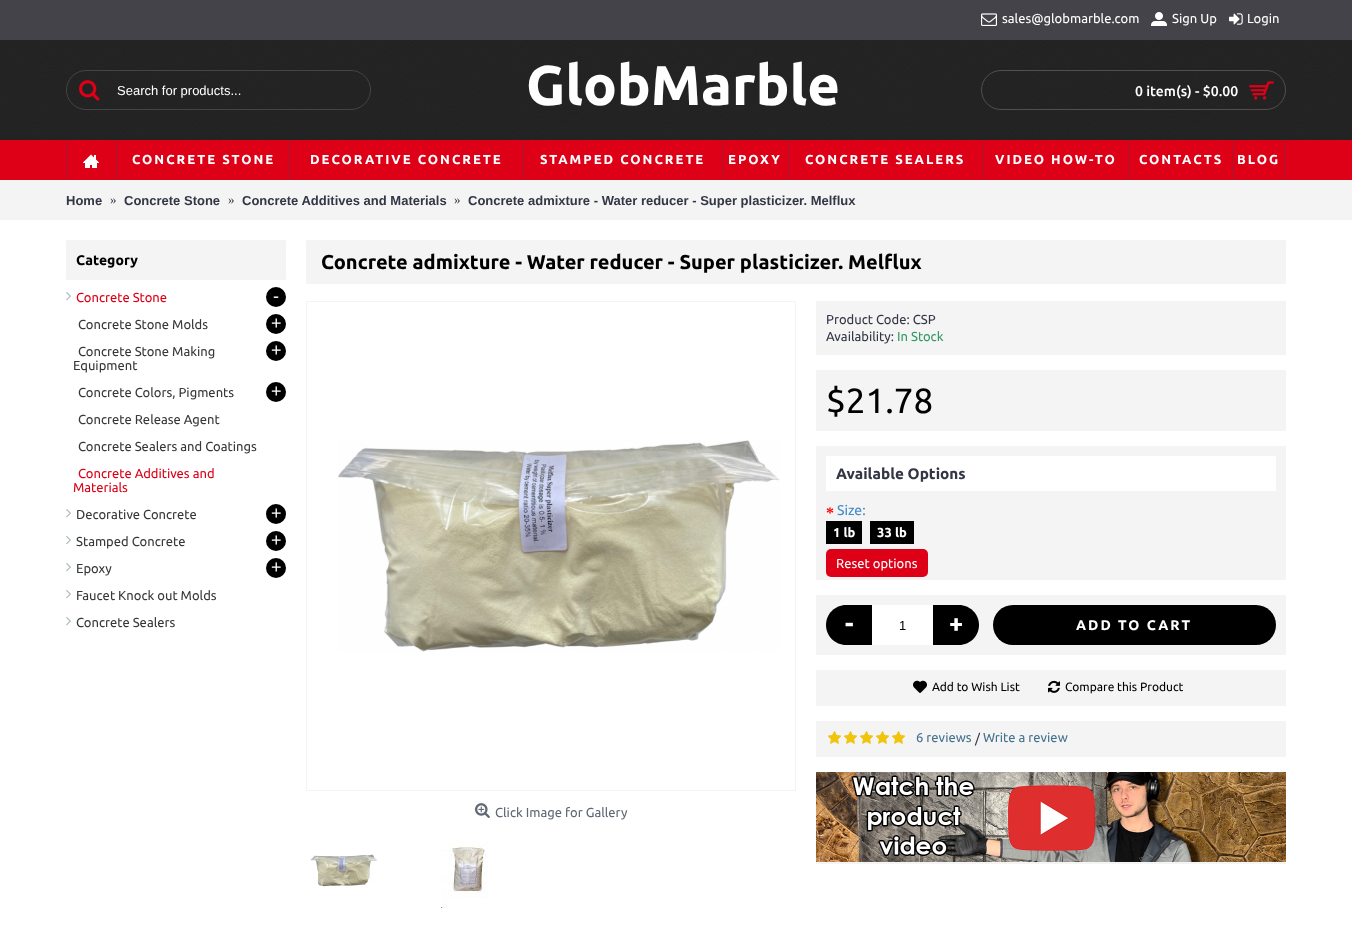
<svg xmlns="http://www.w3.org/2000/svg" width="1352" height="939">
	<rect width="100%" height="100%" fill="#FFFFFF" />
	<image x="0" y="40" width="1352" height="100" href="assets/img1.png" />
	<rect x="0" y="40" width="1352" height="100" fill="#000000" fill-opacity="0.85" />
	<rect x="0" y="0" width="1352" height="40" fill="#444349" />
	<image x="981" y="13" width="16" height="13" href="assets/img2.png" />
	<text x="1002" y="23" font-family="Ubuntu" font-size="13" fill="#FFFFFF">sales@globmarble.com</text>
	<image x="1151" y="12" width="16" height="14" href="assets/img3.png" />
	<text x="1172" y="23" font-family="Ubuntu" font-size="13" fill="#FFFFFF">Sign Up</text>
	<image x="1229" y="13" width="14" height="12" href="assets/img4.png" />
	<text x="1247" y="23" font-family="Ubuntu" font-size="13" fill="#FFFFFF">Login</text>
	<rect x="66.5" y="70.5" width="304" height="39" rx="19.5" fill="none" stroke="#444349" />
	<image x="79" y="80" width="21" height="21" href="assets/img5.png" />
	<text x="117" y="95" font-family="Liberation Sans" font-size="13" fill="#FFFFFF">Search for products...</text>
	<text x="526" y="105" font-family="Ubuntu" font-size="56" font-weight="700" fill="#FFFFFF">GlobMarble</text>
	<rect x="981.5" y="70.5" width="304" height="39" rx="19.5" fill="none" stroke="#505050" />
	<text x="1135" y="96" font-family="Ubuntu" font-size="14" font-weight="500" fill="#FFFFFF">0 item(s) - $0.00</text>
	<image x="1249" y="81" width="25" height="19" href="assets/img6.png" />
	<rect x="0" y="140" width="1352" height="40" fill="#DD0017" />
	<rect x="66" y="140" width="1" height="40" fill="#A41733" />
	<image x="83" y="154" width="16" height="14" href="assets/img7.png" />
	<rect x="116" y="140" width="1" height="40" fill="#A41733" />
	<text x="132" y="164" font-family="Ubuntu" font-size="13" font-weight="700" letter-spacing="2" fill="#FFFFFF">CONCRETE STONE</text>
	<rect x="289" y="140" width="1" height="40" fill="#A41733" />
	<text x="310" y="164" font-family="Ubuntu" font-size="13" font-weight="700" letter-spacing="2" fill="#FFFFFF">DECORATIVE CONCRETE</text>
	<rect x="522" y="140" width="1" height="40" fill="#A41733" />
	<text x="540" y="164" font-family="Ubuntu" font-size="13" font-weight="700" letter-spacing="2" fill="#FFFFFF">STAMPED CONCRETE</text>
	<rect x="722" y="140" width="1" height="40" fill="#A41733" />
	<text x="728" y="164" font-family="Ubuntu" font-size="13" font-weight="700" letter-spacing="2" fill="#FFFFFF">EPOXY</text>
	<rect x="788" y="140" width="1" height="40" fill="#A41733" />
	<text x="805" y="164" font-family="Ubuntu" font-size="13" font-weight="700" letter-spacing="2" fill="#FFFFFF">CONCRETE SEALERS</text>
	<rect x="982" y="140" width="1" height="40" fill="#A41733" />
	<text x="995" y="164" font-family="Ubuntu" font-size="13" font-weight="700" letter-spacing="2" fill="#FFFFFF">VIDEO HOW-TO</text>
	<rect x="1129" y="140" width="1" height="40" fill="#A41733" />
	<text x="1139" y="164" font-family="Ubuntu" font-size="13" font-weight="700" letter-spacing="2" fill="#FFFFFF">CONTACTS</text>
	<rect x="1285" y="140" width="1" height="40" fill="#A41733" />
	<rect x="1232" y="140" width="1" height="40" fill="#A41733" />
	<text x="1237" y="164" font-family="Ubuntu" font-size="13" font-weight="700" letter-spacing="2" fill="#FFFFFF">BLOG</text>
	<rect x="0" y="180" width="1352" height="40" fill="#F4F4F4" />
	<text x="66" y="205" font-family="Liberation Sans" font-size="13" font-weight="700" fill="#333745">Home</text>
	<text x="110" y="204" font-family="Liberation Serif" font-size="13" fill="#333745">»</text>
	<text x="124" y="205" font-family="Liberation Sans" font-size="13" font-weight="700" fill="#333745">Concrete Stone</text>
	<text x="228" y="204" font-family="Liberation Serif" font-size="13" fill="#333745">»</text>
	<text x="242" y="205" font-family="Liberation Sans" font-size="13" font-weight="700" fill="#333745">Concrete Additives and Materials</text>
	<text x="454" y="204" font-family="Liberation Serif" font-size="13" fill="#333745">»</text>
	<text x="468" y="205" font-family="Liberation Sans" font-size="13" font-weight="700" fill="#333745">Concrete admixture - Water reducer - Super plasticizer. Melflux</text>
	<rect x="66" y="240" width="220" height="40" rx="2" fill="#F4F4F4" />
	<text x="76" y="265" font-family="Ubuntu" font-size="14" font-weight="700" fill="#000000">Category</text>
	<image x="66" y="292" width="5" height="9" href="assets/img8.png" />
	<text x="76" y="302" font-family="Ubuntu" font-size="13" fill="#DD0017">Concrete Stone</text>
	<circle cx="276" cy="297" r="10" fill="#000000" />
	<text x="273" y="302" font-family="Liberation Sans" font-size="18" fill="#FFFFFF">-</text>
	<text x="78" y="329" font-family="Ubuntu" font-size="13" fill="#383838">Concrete Stone Molds</text>
	<circle cx="276" cy="324" r="10" fill="#000000" />
	<text x="271" y="329" font-family="Liberation Sans" font-size="18" fill="#FFFFFF">+</text>
	<text x="78" y="356" font-family="Ubuntu" font-size="13" fill="#383838">Concrete Stone Making</text>
	<circle cx="276" cy="351" r="10" fill="#000000" />
	<text x="271" y="356" font-family="Liberation Sans" font-size="18" fill="#FFFFFF">+</text>
	<g font-family="Ubuntu" font-size="13" fill="#383838">
		<text x="73" y="370">Equipment</text>
		<text x="78" y="397">Concrete Colors, Pigments</text>
	</g>
	<circle cx="276" cy="392" r="10" fill="#000000" />
	<text x="271" y="397" font-family="Liberation Sans" font-size="18" fill="#FFFFFF">+</text>
	<g font-family="Ubuntu" font-size="13" fill="#383838">
		<text x="78" y="424">Concrete Release Agent</text>
		<text x="78" y="451">Concrete Sealers and Coatings</text>
	</g>
	<g font-family="Ubuntu" font-size="13" fill="#DD0017">
		<text x="78" y="478">Concrete Additives and</text>
		<text x="73" y="492">Materials</text>
	</g>
	<image x="66" y="509" width="5" height="9" href="assets/img8.png" />
	<text x="76" y="519" font-family="Ubuntu" font-size="13" fill="#383838">Decorative Concrete</text>
	<circle cx="276" cy="514" r="10" fill="#000000" />
	<text x="271" y="519" font-family="Liberation Sans" font-size="18" fill="#FFFFFF">+</text>
	<image x="66" y="536" width="5" height="9" href="assets/img8.png" />
	<text x="76" y="546" font-family="Ubuntu" font-size="13" fill="#383838">Stamped Concrete</text>
	<circle cx="276" cy="541" r="10" fill="#000000" />
	<text x="271" y="546" font-family="Liberation Sans" font-size="18" fill="#FFFFFF">+</text>
	<image x="66" y="563" width="5" height="9" href="assets/img8.png" />
	<text x="76" y="573" font-family="Ubuntu" font-size="13" fill="#383838">Epoxy</text>
	<circle cx="276" cy="568" r="10" fill="#000000" />
	<text x="271" y="573" font-family="Liberation Sans" font-size="18" fill="#FFFFFF">+</text>
	<image x="66" y="590" width="5" height="9" href="assets/img8.png" />
	<text x="76" y="600" font-family="Ubuntu" font-size="13" fill="#383838">Faucet Knock out Molds</text>
	<image x="66" y="617" width="5" height="9" href="assets/img8.png" />
	<text x="76" y="627" font-family="Ubuntu" font-size="13" fill="#383838">Concrete Sealers</text>
	<rect x="306" y="240" width="980" height="44" rx="2" fill="#F4F4F4" />
	<text x="321" y="269" font-family="Ubuntu" font-size="20" font-weight="700" fill="#000000">Concrete admixture - Water reducer - Super plasticizer. Melflux</text>
	<rect x="816" y="301" width="470" height="54" fill="#F4F4F4" />
	<g font-family="Ubuntu" font-size="13" fill="#333745">
		<text x="826" y="324">Product Code: CSP</text>
		<text x="826" y="341">Availability:</text>
	</g>
	<text x="897" y="341" font-family="Ubuntu" font-size="13" fill="#339965">In Stock</text>
	<rect x="816" y="370" width="470" height="61" fill="#F4F4F4" />
	<text x="826" y="413" font-family="Ubuntu" font-size="35" fill="#000000">$21.78</text>
	<rect x="816" y="446" width="470" height="134" fill="#F4F4F4" />
	<rect x="826" y="456" width="450" height="35" fill="#FFFFFF" />
	<text x="836" y="479" font-family="Ubuntu" font-size="15.25" font-weight="700" fill="#333745">Available Options</text>
	<text x="826" y="518" font-family="Liberation Serif" font-size="16" font-weight="700" fill="#FF0000">*</text>
	<text x="837" y="515" font-family="Ubuntu" font-size="14" fill="#428BCA">Size:</text>
	<rect x="826" y="521" width="36" height="23" fill="#000000" />
	<text x="833" y="537" font-family="Ubuntu" font-size="13" font-weight="700" fill="#FFFFFF">1 lb</text>
	<rect x="870" y="521" width="44" height="23" fill="#000000" />
	<text x="877" y="537" font-family="Ubuntu" font-size="13" font-weight="700" fill="#FFFFFF">33 lb</text>
	<rect x="826" y="549" width="102" height="28" rx="5" fill="#DD0017" />
	<text x="836" y="568" font-family="Ubuntu" font-size="13" fill="#FFFFFF">Reset options</text>
	<rect x="816" y="595" width="470" height="60" fill="#F4F4F4" />
	<path d="M846 605H872V645H846C835 645 826 636 826 625C826 614 835 605 846 605Z" fill="#000000" />
	<text x="845" y="632" font-family="Ubuntu" font-size="25" font-weight="700" fill="#FFFFFF">-</text>
	<rect x="872" y="605" width="61" height="40" fill="#FFFFFF" />
	<text x="899" y="630" font-family="Liberation Sans" font-size="13" fill="#000000">1</text>
	<path d="M933 605H959C970 605 979 614 979 625C979 636 970 645 959 645H933Z" fill="#000000" />
	<text x="949" y="632" font-family="Ubuntu" font-size="25" font-weight="700" fill="#FFFFFF">+</text>
	<rect x="993" y="605" width="283" height="40" rx="20" fill="#000000" />
	<text x="1076" y="630" font-family="Ubuntu" font-size="14" font-weight="700" letter-spacing="2" fill="#FFFFFF">ADD TO CART</text>
	<rect x="816" y="670" width="470" height="36" fill="#F4F4F4" />
	<image x="913" y="680" width="14" height="13" href="assets/img9.png" />
	<text x="932" y="691" font-family="Ubuntu" font-size="12" fill="#000000">Add to Wish List</text>
	<image x="1048" y="680" width="12" height="13" href="assets/img10.png" />
	<text x="1065" y="691" font-family="Ubuntu" font-size="12" fill="#000000">Compare this Product</text>
	<rect x="816" y="721" width="470" height="36" fill="#F4F4F4" />
	<image x="828" y="731" width="13" height="13" href="assets/img11.png" />
	<image x="828" y="731" width="13" height="13" href="assets/img12.png" />
	<image x="844" y="731" width="13" height="13" href="assets/img11.png" />
	<image x="844" y="731" width="13" height="13" href="assets/img12.png" />
	<image x="860" y="731" width="13" height="13" href="assets/img11.png" />
	<image x="860" y="731" width="13" height="13" href="assets/img12.png" />
	<image x="876" y="731" width="13" height="13" href="assets/img11.png" />
	<image x="876" y="731" width="13" height="13" href="assets/img12.png" />
	<image x="892" y="731" width="13" height="13" href="assets/img11.png" />
	<image x="892" y="731" width="13" height="13" href="assets/img12.png" />
	<text x="916" y="742" font-family="Ubuntu" font-size="13" fill="#45738F">6 reviews</text>
	<text x="975" y="743" font-family="Ubuntu" font-size="13" fill="#333745">/</text>
	<text x="983" y="742" font-family="Ubuntu" font-size="13" fill="#45738F">Write a review</text>
	<rect x="816" y="862" width="470" height="2" fill="#F4F4F4" />
	<image x="816" y="772" width="470" height="90" href="assets/img13.png" />
	<rect x="306.5" y="301.5" width="489" height="489" fill="none" stroke="#F4F4F4" />
	<image x="338" y="440" width="442" height="212" href="assets/img14.png" />
	<image x="475" y="803" width="15" height="15" href="assets/img15.png" />
	<text x="495" y="817" font-family="Ubuntu" font-size="13" fill="#5F6874">Click Image for Gallery</text>
	<image x="310" y="854" width="68" height="33" href="assets/img16.png" />
	<image x="440" y="844" width="48" height="64" href="assets/img17.png" />
</svg>
